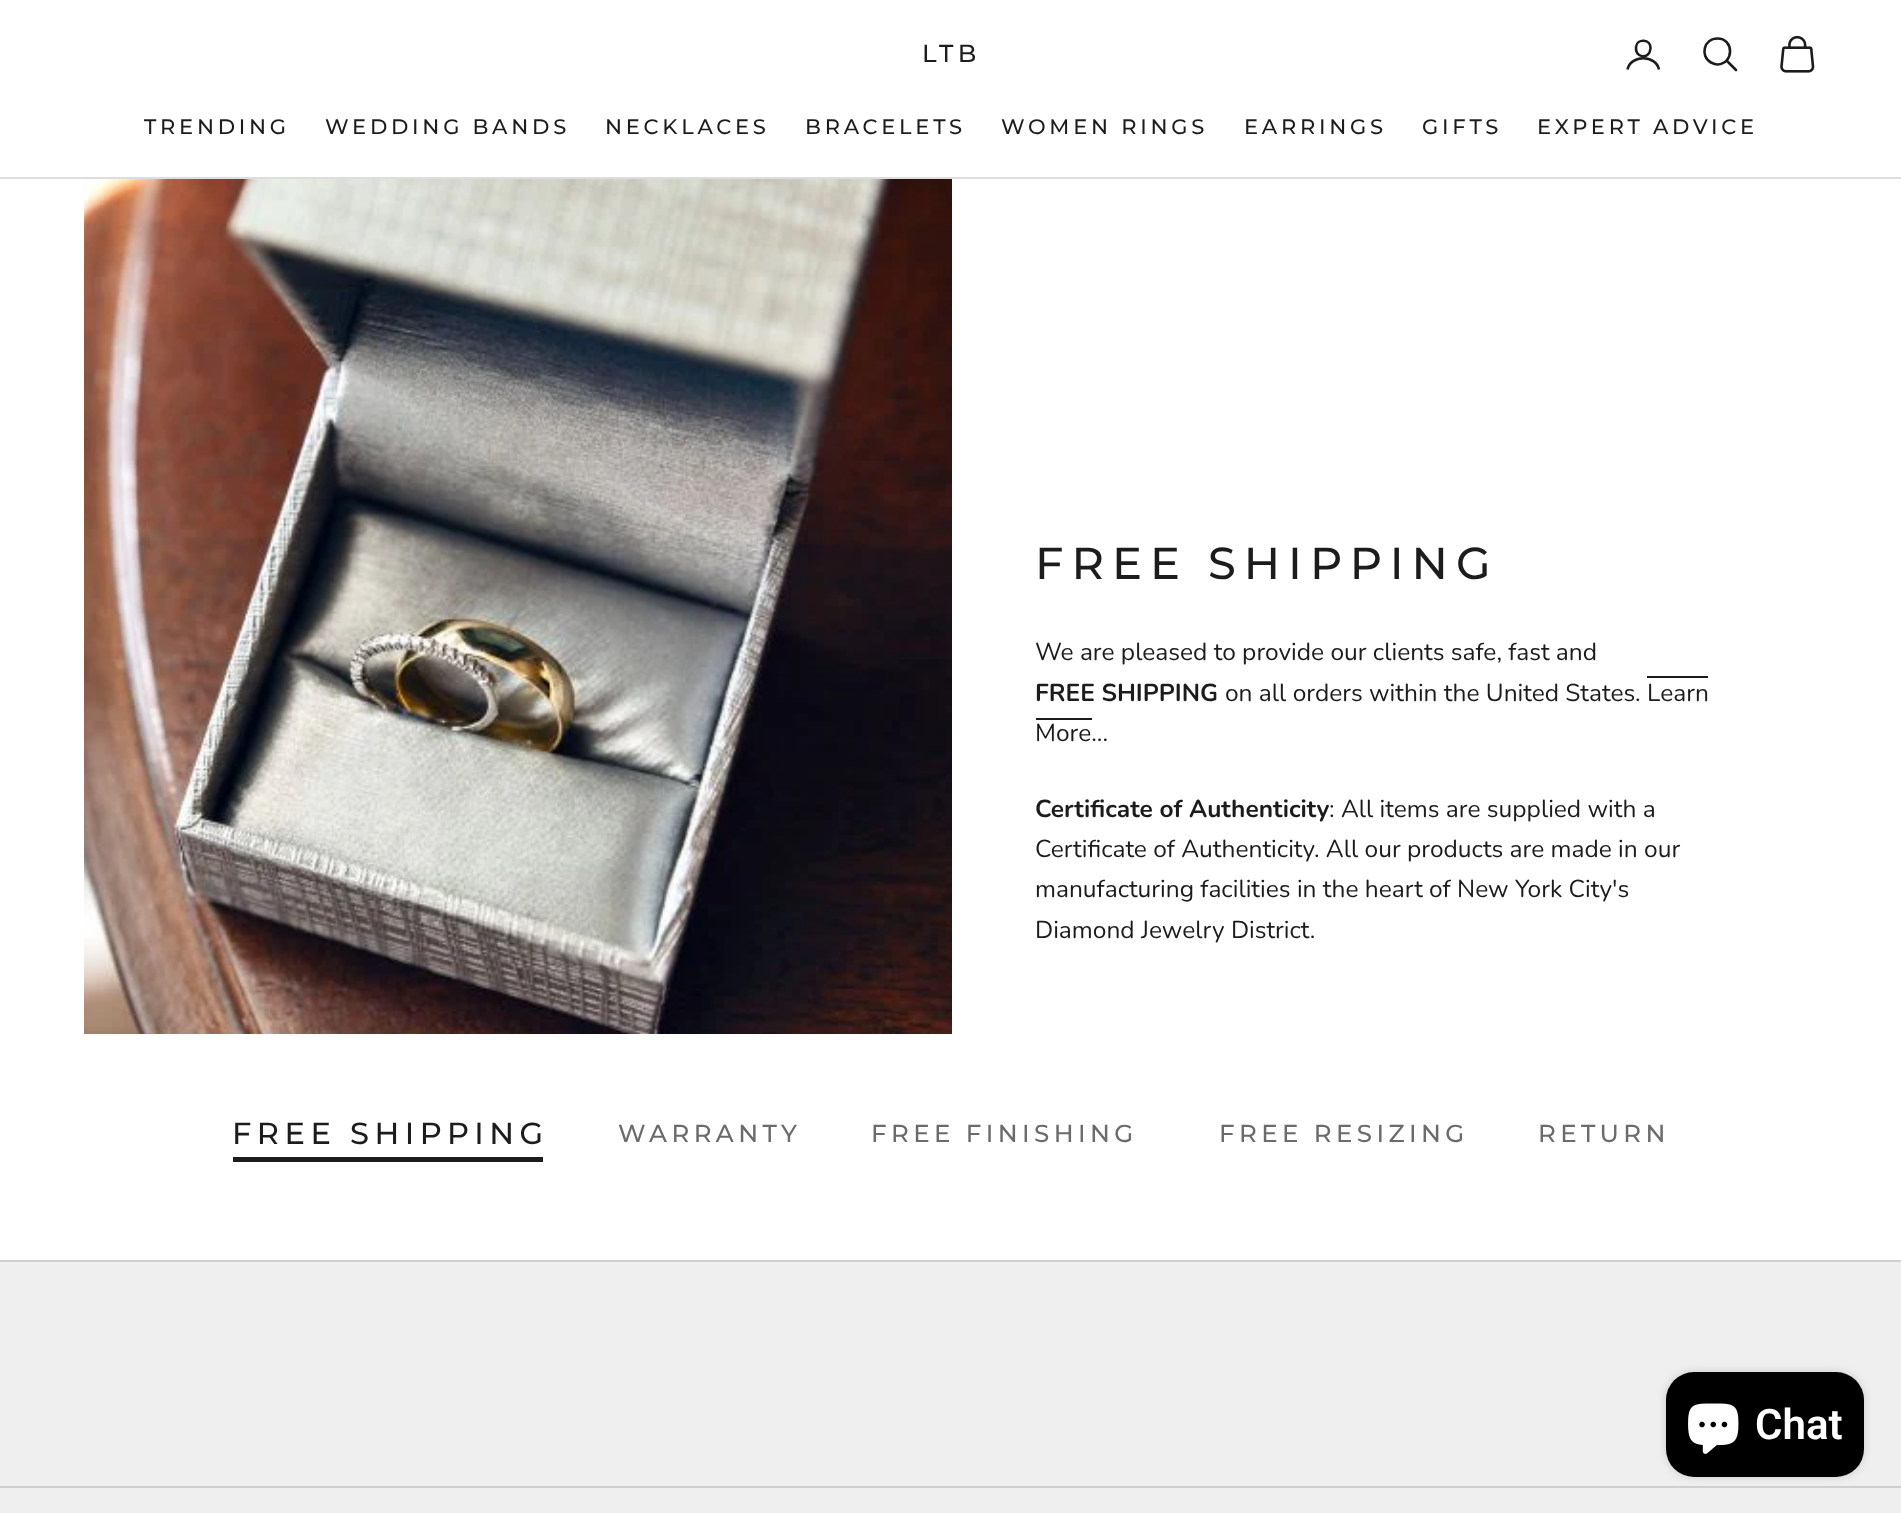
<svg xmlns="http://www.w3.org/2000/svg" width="1901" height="1513">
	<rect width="100%" height="100%" fill="#EFEFEF" />
	<rect x="0" y="0" width="1901" height="177" fill="#FFFFFF" />
	<rect x="0" y="177" width="1901" height="2" fill="#DDDDDD" />
	<text x="922" y="62" font-family="Montserrat" font-size="24.5" font-weight="500" letter-spacing="4.4" fill="#1C1C1C">LTB</text>
	<path d="M1650.5 48.5C1649.5 60 1634.5 58 1636 47C1637 38 1651 39 1650.5 48.5Z" fill="none" stroke="#1C1C1C" stroke-width="2.6" stroke-linecap="round" stroke-linejoin="round" />
	<path d="M1627.5 69.5C1630.5 54.5 1656 54.5 1659 69.5" fill="none" stroke="#1C1C1C" stroke-width="2.6" />
	<path d="M1717.5 38.5C1704 38.5 1699.5 56 1711 62.5C1713 63.5 1715 64.5 1717.5 64.5C1734.5 63.5 1734 38.5 1717.5 38.5Z" fill="none" stroke="#1C1C1C" stroke-width="2.6" />
	<path d="M1727 61L1736 70" fill="none" stroke="#1C1C1C" stroke-width="2.6" stroke-linecap="round" />
	<image x="1780" y="35" width="35" height="38" href="assets/img1.png" />
	<g font-family="Montserrat" font-size="21" font-weight="500" letter-spacing="3.75" fill="#1C1C1C">
		<text x="144" y="134">TRENDING</text>
		<text x="325" y="134">WEDDING BANDS</text>
		<text x="605" y="134">NECKLACES</text>
		<text x="805" y="134">BRACELETS</text>
		<text x="1001" y="134">WOMEN RINGS</text>
		<text x="1244" y="134">EARRINGS</text>
		<text x="1422" y="134">GIFTS</text>
		<text x="1537" y="134">EXPERT ADVICE</text>
	</g>
	<rect x="0" y="179" width="1901" height="1081" fill="#FFFFFF" />
	<image x="84" y="179" width="868" height="855" href="assets/img2.png" />
	<text x="1035" y="579" font-family="Montserrat" font-size="44.75" font-weight="500" letter-spacing="8" fill="#1C1C1C">FREE SHIPPING</text>
	<text x="1035" y="660" font-family="Nunito" font-size="24.5" fill="#1C1C1C">We are pleased to provide our clients safe, fast and</text>
	<text x="1035" y="701" font-family="Nunito" font-size="24.5" font-weight="700" fill="#1C1C1C">FREE SHIPPING</text>
	<g font-family="Nunito" font-size="24.5" fill="#1C1C1C">
		<text x="1225" y="701">on all orders within the United States. Learn</text>
		<text x="1035" y="741">More...</text>
	</g>
	<rect x="1647" y="676" width="61" height="2" fill="#1C1C1C" />
	<rect x="1036" y="718" width="56" height="2" fill="#1C1C1C" />
	<text x="1035" y="817" font-family="Nunito" font-size="24.5" font-weight="700" fill="#1C1C1C">Certificate of Authenticity</text>
	<g font-family="Nunito" font-size="24.5" fill="#1C1C1C">
		<text x="1329" y="817">: All items are supplied with a</text>
		<text x="1035" y="857">Certificate of Authenticity. All our products are made in our</text>
		<text x="1035" y="897">manufacturing facilities in the heart of New York City's</text>
		<text x="1035" y="938">Diamond Jewelry District.</text>
	</g>
	<text x="232" y="1144" font-family="Montserrat" font-size="30.5" font-weight="500" letter-spacing="5.5" fill="#1C1C1C">FREE SHIPPING</text>
	<rect x="233" y="1157" width="310" height="5" fill="#1C1C1C" />
	<g font-family="Montserrat" font-size="24.5" font-weight="500" letter-spacing="4.4" fill="#6B6B6B">
		<text x="618" y="1142">WARRANTY</text>
		<text x="871" y="1142">FREE FINISHING</text>
		<text x="1219" y="1142">FREE RESIZING</text>
		<text x="1538" y="1142">RETURN</text>
	</g>
	<rect x="0" y="1260" width="1901" height="2" fill="#CFCFCF" />
	<rect x="0" y="1486" width="1901" height="2" fill="#CFCFCF" />
	<rect x="1666" y="1372" width="198" height="105" rx="28" fill="#000000" fill-opacity="0.15" filter="blur(4.5px)" />
	<rect x="1666" y="1372" width="198" height="105" rx="28" fill="#000000" />
	<image x="1688" y="1403" width="51" height="51" href="assets/img3.png" />
	<text x="1755" y="1439" font-family="Roboto" font-size="42" font-weight="600" fill="#FFFFFF">Chat</text>
</svg>
